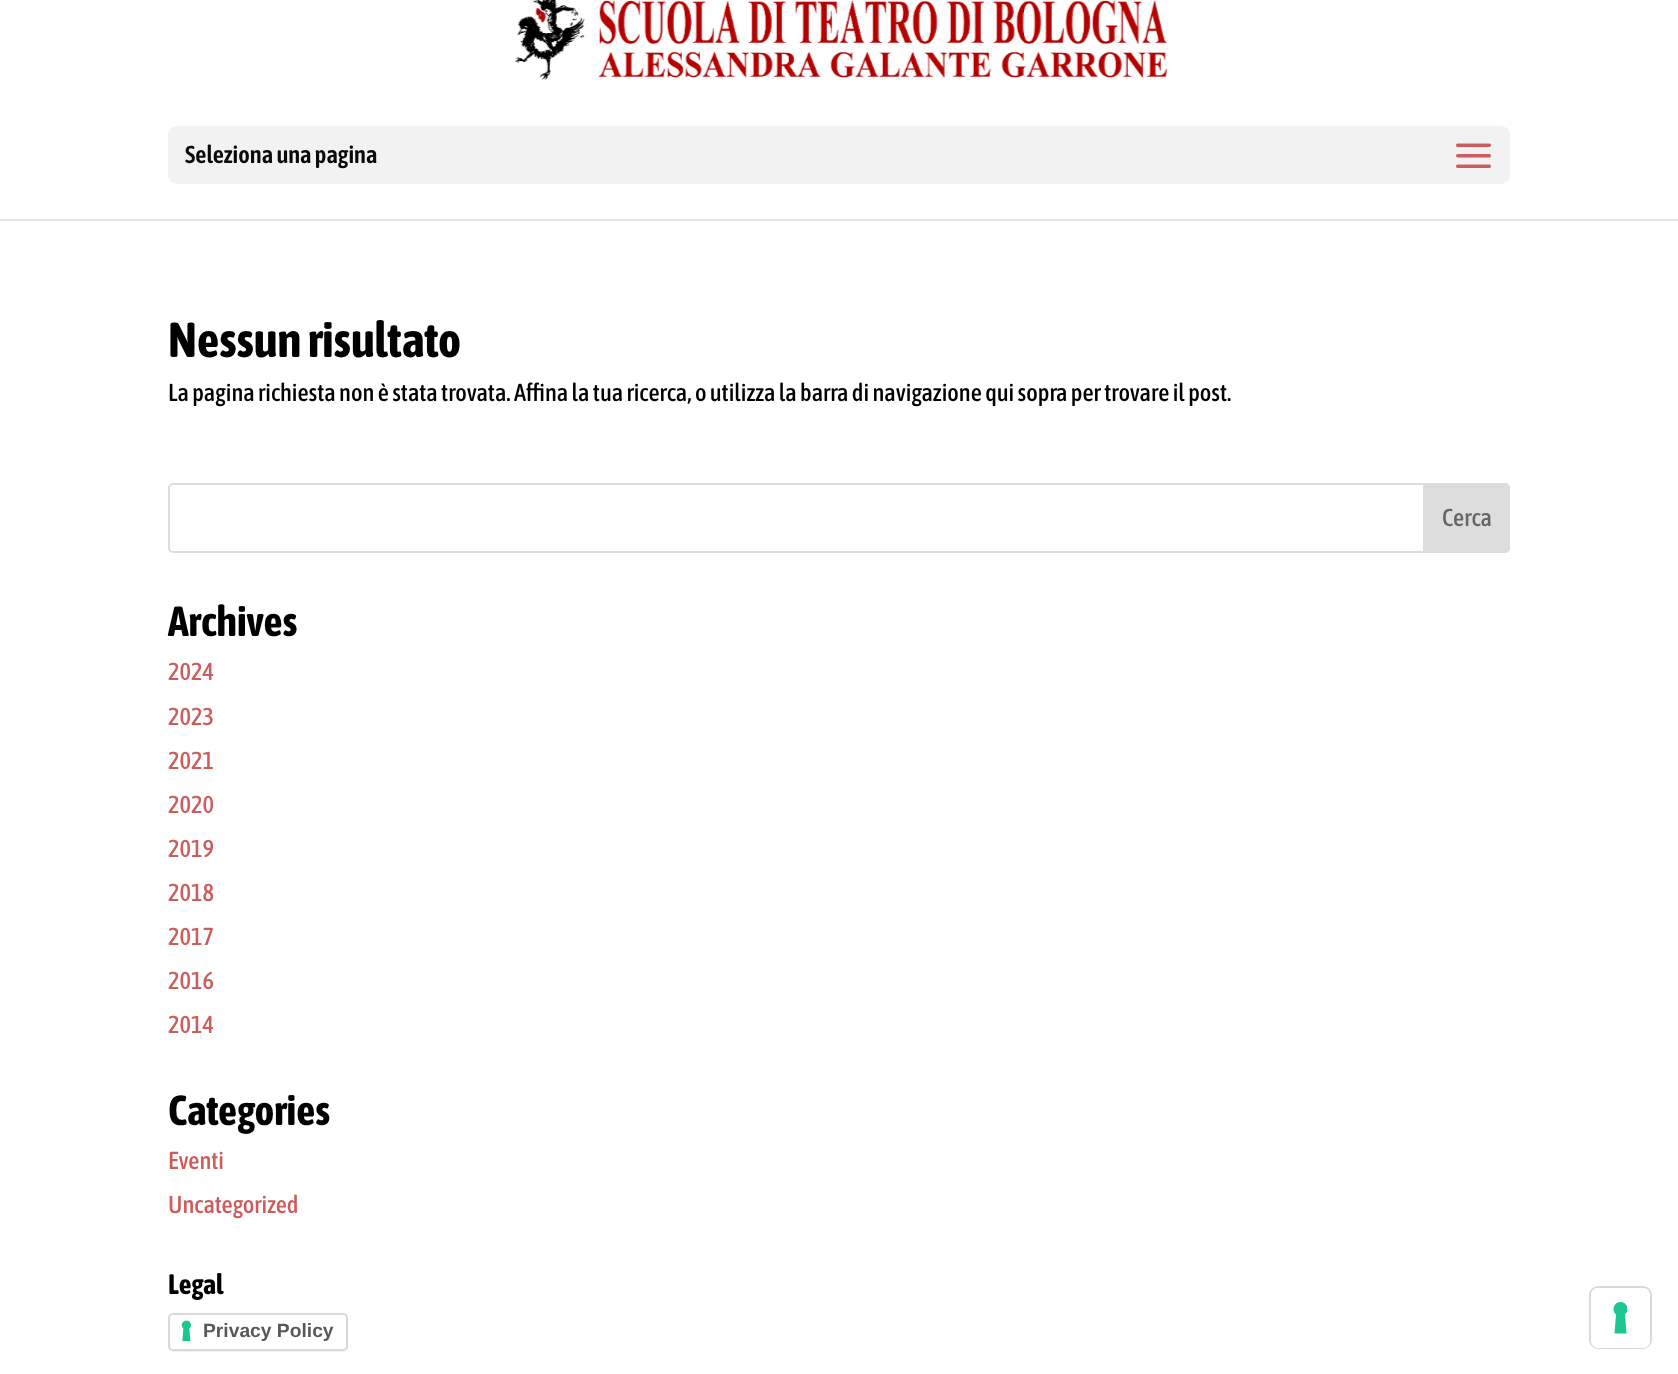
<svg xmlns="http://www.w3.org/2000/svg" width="1678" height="1374">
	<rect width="100%" height="100%" fill="#FFFFFF" />
	<rect x="0" y="219" width="1678" height="2" fill="#E6E6E6" />
	<image x="514" y="0" width="654" height="80" href="assets/img1.png" />
	<rect x="168" y="126" width="1342" height="58" rx="9" fill="#F2F2F2" />
	<text x="185" y="163" font-family="Asap Condensed" font-size="24.5" font-weight="600" fill="#0A0A0A">Seleziona una pagina</text>
	<image x="1456" y="143" width="35" height="25" href="assets/img2.png" />
	<text x="168" y="357" font-family="Asap Condensed" font-size="49" font-weight="700" fill="#000000">Nessun risultato</text>
	<text x="168" y="401" font-family="Asap Condensed" font-size="24.5" font-weight="500" fill="#000000">La pagina richiesta non è stata trovata. Affina la tua ricerca, o utilizza la barra di navigazione qui sopra per trovare il post.</text>
	<rect x="169" y="484" width="1340" height="68" rx="4" fill="none" stroke="#DDDDDD" stroke-width="2" />
	<path d="M1424 484H1505C1507 484 1509 486 1509 488V548C1509 550 1507 552 1505 552H1424Z" fill="#DDDDDD" stroke="#DDDDDD" stroke-width="2" />
	<text x="1442" y="526" font-family="Asap Condensed" font-size="24.5" font-weight="500" fill="#666666">Cerca</text>
	<text x="168" y="636" font-family="Asap Condensed" font-size="42" font-weight="700" fill="#000000">Archives</text>
	<g font-family="Asap Condensed" font-size="24.5" font-weight="500" fill="#CD5C5C">
		<text x="168" y="680">2024</text>
		<text x="168" y="725">2023</text>
		<text x="168" y="769">2021</text>
		<text x="168" y="813">2020</text>
		<text x="168" y="857">2019</text>
		<text x="168" y="901">2018</text>
		<text x="168" y="945">2017</text>
		<text x="168" y="989">2016</text>
		<text x="168" y="1033">2014</text>
	</g>
	<text x="168" y="1125" font-family="Asap Condensed" font-size="42" font-weight="700" fill="#000000">Categories</text>
	<g font-family="Asap Condensed" font-size="24.5" font-weight="500" fill="#CD5C5C">
		<text x="168" y="1169">Eventi</text>
		<text x="168" y="1213">Uncategorized</text>
	</g>
	<text x="168" y="1294" font-family="Asap Condensed" font-size="28" font-weight="700" fill="#000000">Legal</text>
	<rect x="170" y="1316" width="177" height="35" rx="4" fill="#000000" fill-opacity="0.15" filter="blur(1px)" />
	<rect x="168" y="1313" width="180" height="38" rx="5" fill="#FFFFFF" />
	<image x="181" y="1320" width="10" height="22" href="assets/img3.png" />
	<rect x="169" y="1314" width="178" height="36" rx="4" fill="none" stroke="#D9D9D9" stroke-width="2" />
	<text x="203" y="1337" font-family="Liberation Sans" font-size="19.25" font-weight="700" fill="#595959">Privacy Policy</text>
	<rect x="1590" y="1287" width="61" height="61" rx="8" fill="none" stroke="#D9D9D9" stroke-width="2" />
	<rect x="1591" y="1288" width="59" height="60" rx="7" fill="#FFFFFF" />
	<path d="M1620.5 1302C1627 1302 1630 1310 1625 1314.5L1626.5 1333.5H1614.5L1616 1314.5C1611 1310 1614 1302 1620.5 1302Z" fill="#1CC691" fill-rule="evenodd" />
</svg>
